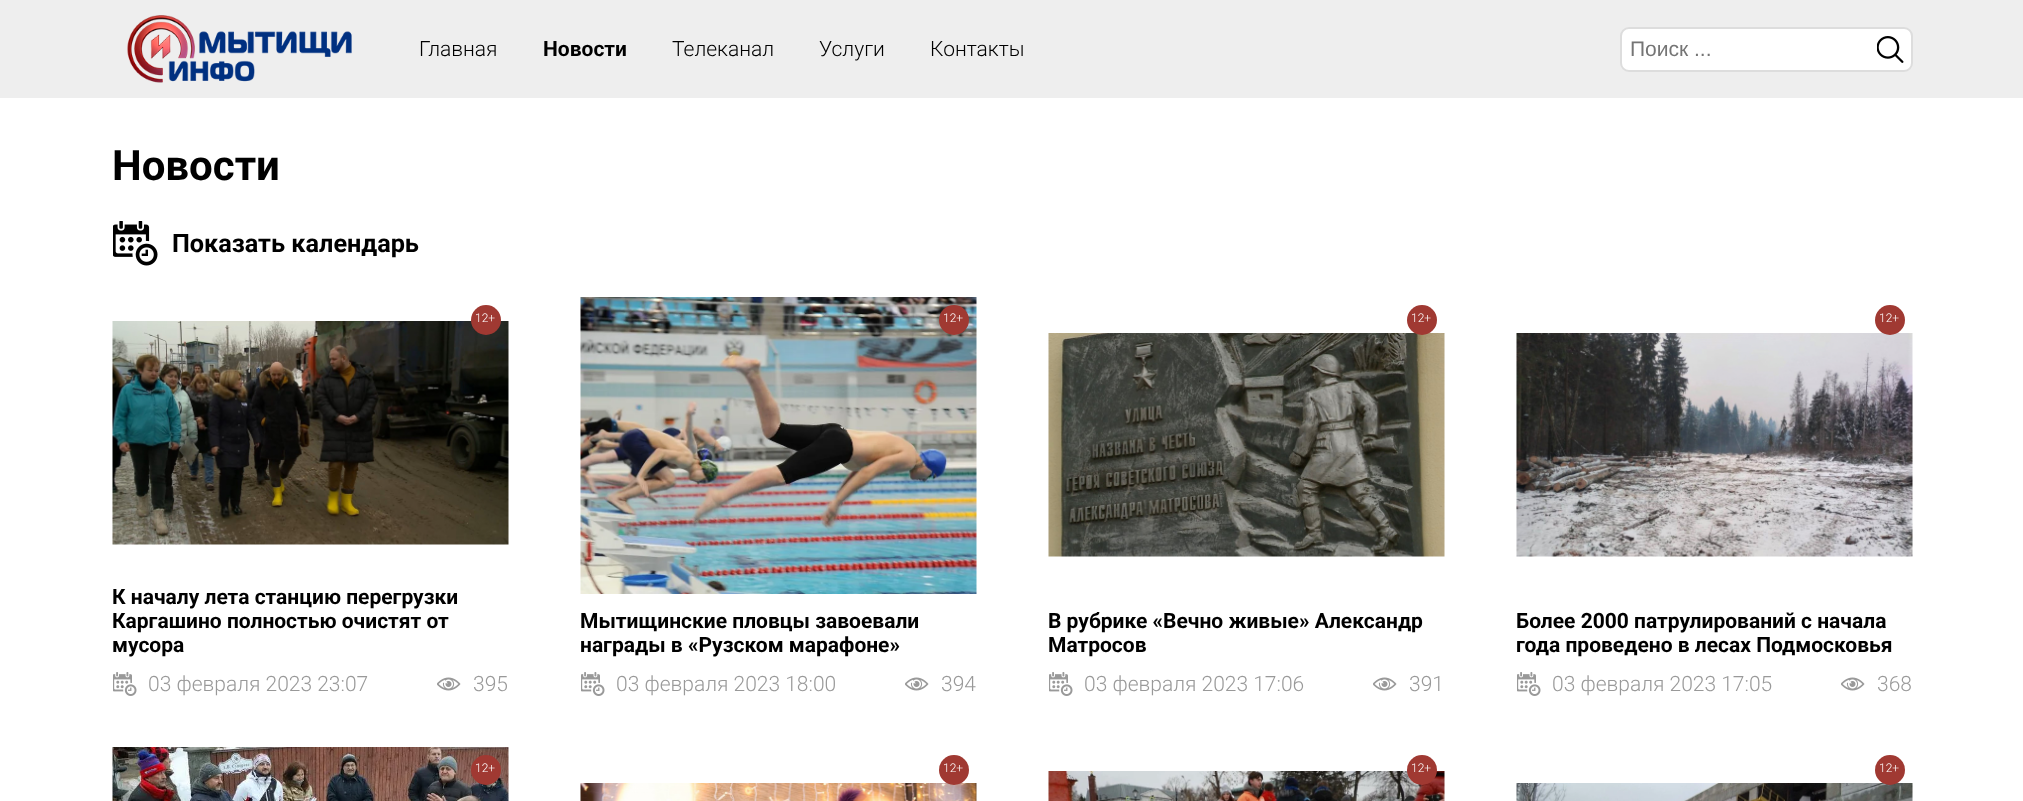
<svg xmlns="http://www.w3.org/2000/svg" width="2023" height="801">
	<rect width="100%" height="100%" fill="#FFFFFF" />
	<rect x="0" y="0" width="2023" height="98" fill="#EEEEEE" />
	<image x="127" y="15" width="225" height="68" href="assets/img1.png" />
	<text x="419" y="56" font-family="Roboto" font-size="21" font-weight="300" fill="#000000">Главная</text>
	<text x="543" y="56" font-family="Roboto" font-size="21" font-weight="700" fill="#000000">Новости</text>
	<g font-family="Roboto" font-size="21" font-weight="300" fill="#000000">
		<text x="672" y="56">Телеканал</text>
		<text x="819" y="56">Услуги</text>
		<text x="930" y="56">Контакты</text>
	</g>
	<rect x="1621" y="28" width="291" height="43" rx="8" fill="#FFFFFF" stroke="#DDDDDD" stroke-width="2" />
	<text x="1630" y="56" font-family="Liberation Sans" font-size="21" fill="#757575">Поиск ...</text>
	<image x="1877" y="36" width="27" height="27" href="assets/img2.png" />
	<text x="112" y="180" font-family="Roboto" font-size="42" font-weight="700" fill="#000000">Новости</text>
	<image x="113" y="221" width="45" height="45" href="assets/img3.png" />
	<text x="172" y="252" font-family="Roboto" font-size="25.25" font-weight="700" fill="#000000">Показать календарь</text>
	<image x="112" y="321" width="397" height="224" href="assets/img4.png" />
	<circle cx="486" cy="320" r="15" fill="#A03932" />
	<text x="475" y="322" font-family="Roboto" font-size="12" font-weight="300" fill="#FFFFFF">12+</text>
	<g font-family="Roboto" font-size="21" font-weight="700" fill="#000000">
		<text x="112" y="604">К началу лета станцию перегрузки</text>
		<text x="112" y="628">Каргашино полностью очистят от</text>
		<text x="112" y="652">мусора</text>
	</g>
	<image x="113" y="672" width="24" height="24" href="assets/img5.png" />
	<text x="148" y="691" font-family="Roboto" font-size="21" font-weight="300" fill="#999999">03 февраля 2023 23:07</text>
	<image x="437" y="677" width="24" height="14" href="assets/img6.png" />
	<text x="473" y="691" font-family="Roboto" font-size="21" font-weight="300" fill="#999999">395</text>
	<image x="580" y="297" width="397" height="297" href="assets/img7.png" />
	<circle cx="954" cy="320" r="15" fill="#A03932" />
	<text x="943" y="322" font-family="Roboto" font-size="12" font-weight="300" fill="#FFFFFF">12+</text>
	<g font-family="Roboto" font-size="21" font-weight="700" fill="#000000">
		<text x="580" y="628">Мытищинские пловцы завоевали</text>
		<text x="580" y="652">награды в «Рузском марафоне»</text>
	</g>
	<image x="581" y="672" width="24" height="24" href="assets/img5.png" />
	<text x="616" y="691" font-family="Roboto" font-size="21" font-weight="300" fill="#999999">03 февраля 2023 18:00</text>
	<image x="905" y="677" width="24" height="14" href="assets/img6.png" />
	<text x="941" y="691" font-family="Roboto" font-size="21" font-weight="300" fill="#999999">394</text>
	<image x="1048" y="333" width="397" height="224" href="assets/img8.png" />
	<circle cx="1422" cy="320" r="15" fill="#A03932" />
	<text x="1411" y="322" font-family="Roboto" font-size="12" font-weight="300" fill="#FFFFFF">12+</text>
	<g font-family="Roboto" font-size="21" font-weight="700" fill="#000000">
		<text x="1048" y="628">В рубрике «Вечно живые» Александр</text>
		<text x="1048" y="652">Матросов</text>
	</g>
	<image x="1049" y="672" width="24" height="24" href="assets/img5.png" />
	<text x="1084" y="691" font-family="Roboto" font-size="21" font-weight="300" fill="#999999">03 февраля 2023 17:06</text>
	<image x="1373" y="677" width="24" height="14" href="assets/img6.png" />
	<text x="1409" y="691" font-family="Roboto" font-size="21" font-weight="300" fill="#999999">391</text>
	<image x="1516" y="333" width="397" height="224" href="assets/img9.png" />
	<circle cx="1890" cy="320" r="15" fill="#A03932" />
	<text x="1879" y="322" font-family="Roboto" font-size="12" font-weight="300" fill="#FFFFFF">12+</text>
	<g font-family="Roboto" font-size="21" font-weight="700" fill="#000000">
		<text x="1516" y="628">Более 2000 патрулирований с начала</text>
		<text x="1516" y="652">года проведено в лесах Подмосковья</text>
	</g>
	<image x="1517" y="672" width="24" height="24" href="assets/img5.png" />
	<text x="1552" y="691" font-family="Roboto" font-size="21" font-weight="300" fill="#999999">03 февраля 2023 17:05</text>
	<image x="1841" y="677" width="24" height="14" href="assets/img6.png" />
	<text x="1877" y="691" font-family="Roboto" font-size="21" font-weight="300" fill="#999999">368</text>
	<image x="112" y="747" width="397" height="54" href="assets/img10.png" />
	<circle cx="486" cy="770" r="15" fill="#A03932" />
	<text x="475" y="772" font-family="Roboto" font-size="12" font-weight="300" fill="#FFFFFF">12+</text>
	<image x="580" y="783" width="397" height="18" href="assets/img11.png" />
	<circle cx="954" cy="770" r="15" fill="#A03932" />
	<text x="943" y="772" font-family="Roboto" font-size="12" font-weight="300" fill="#FFFFFF">12+</text>
	<image x="1048" y="771" width="397" height="30" href="assets/img12.png" />
	<circle cx="1422" cy="770" r="15" fill="#A03932" />
	<text x="1411" y="772" font-family="Roboto" font-size="12" font-weight="300" fill="#FFFFFF">12+</text>
	<image x="1516" y="783" width="397" height="18" href="assets/img13.png" />
	<circle cx="1890" cy="770" r="15" fill="#A03932" />
	<text x="1879" y="772" font-family="Roboto" font-size="12" font-weight="300" fill="#FFFFFF">12+</text>
</svg>
